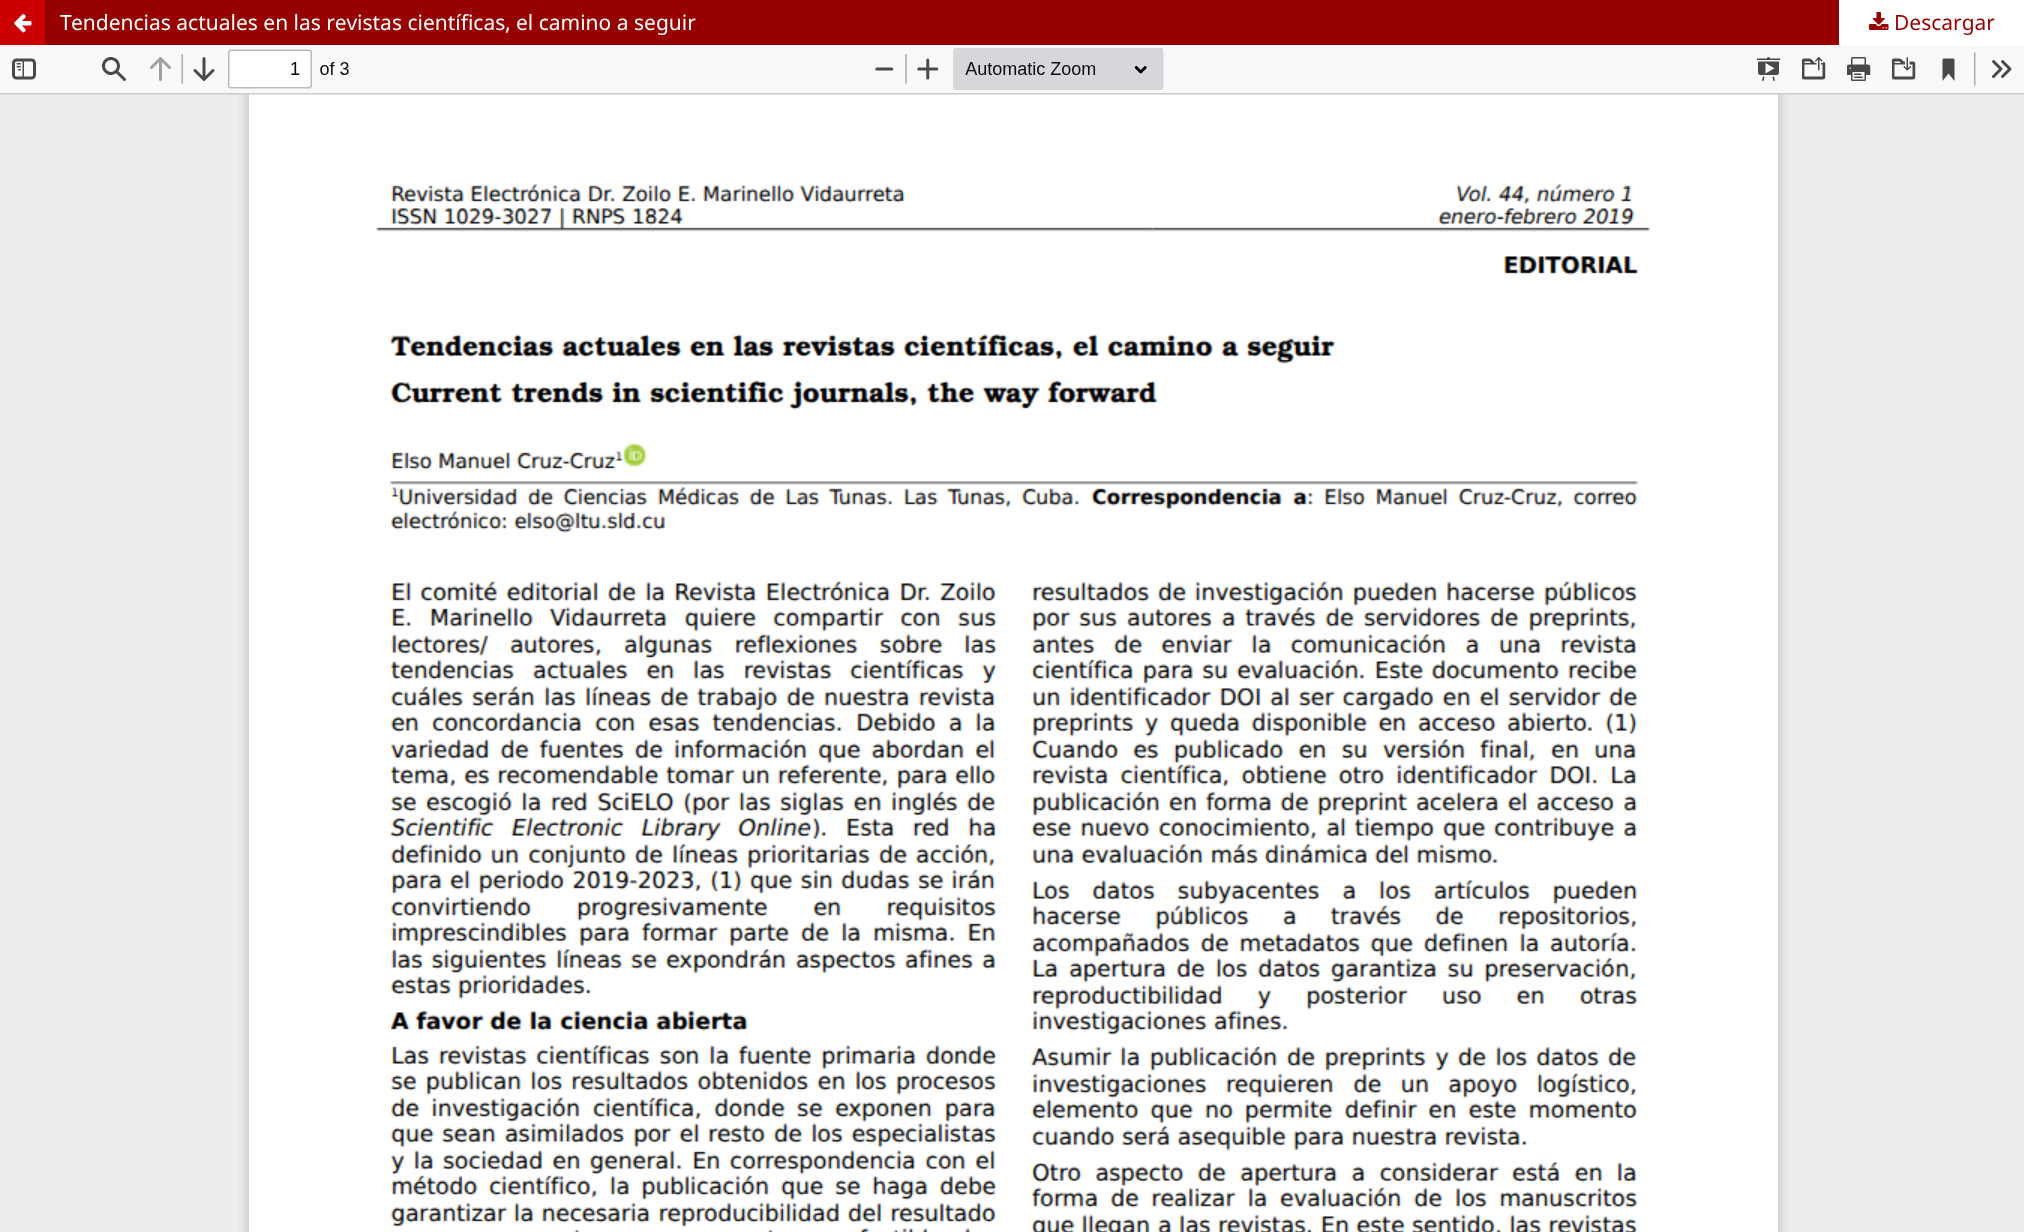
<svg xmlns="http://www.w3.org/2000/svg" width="2024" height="1232">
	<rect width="100%" height="100%" fill="#FFFFFF" />
	<rect x="45" y="0" width="1794" height="45" fill="#970000" />
	<rect x="0" y="0" width="45" height="45" fill="#CA0000" />
	<image x="14" y="14" width="18" height="19" href="assets/img1.png" />
	<text x="60" y="30" font-family="Noto Sans" font-size="21" fill="#FFFFFF">Tendencias actuales en las revistas científicas, el camino a seguir</text>
	<image x="1869" y="12" width="20" height="18" href="assets/img2.png" />
	<text x="1894" y="30" font-family="Noto Sans" font-size="21" fill="#970000">Descargar</text>
	<image x="0" y="45" width="2024" height="1187" href="assets/img3.png" />
</svg>
